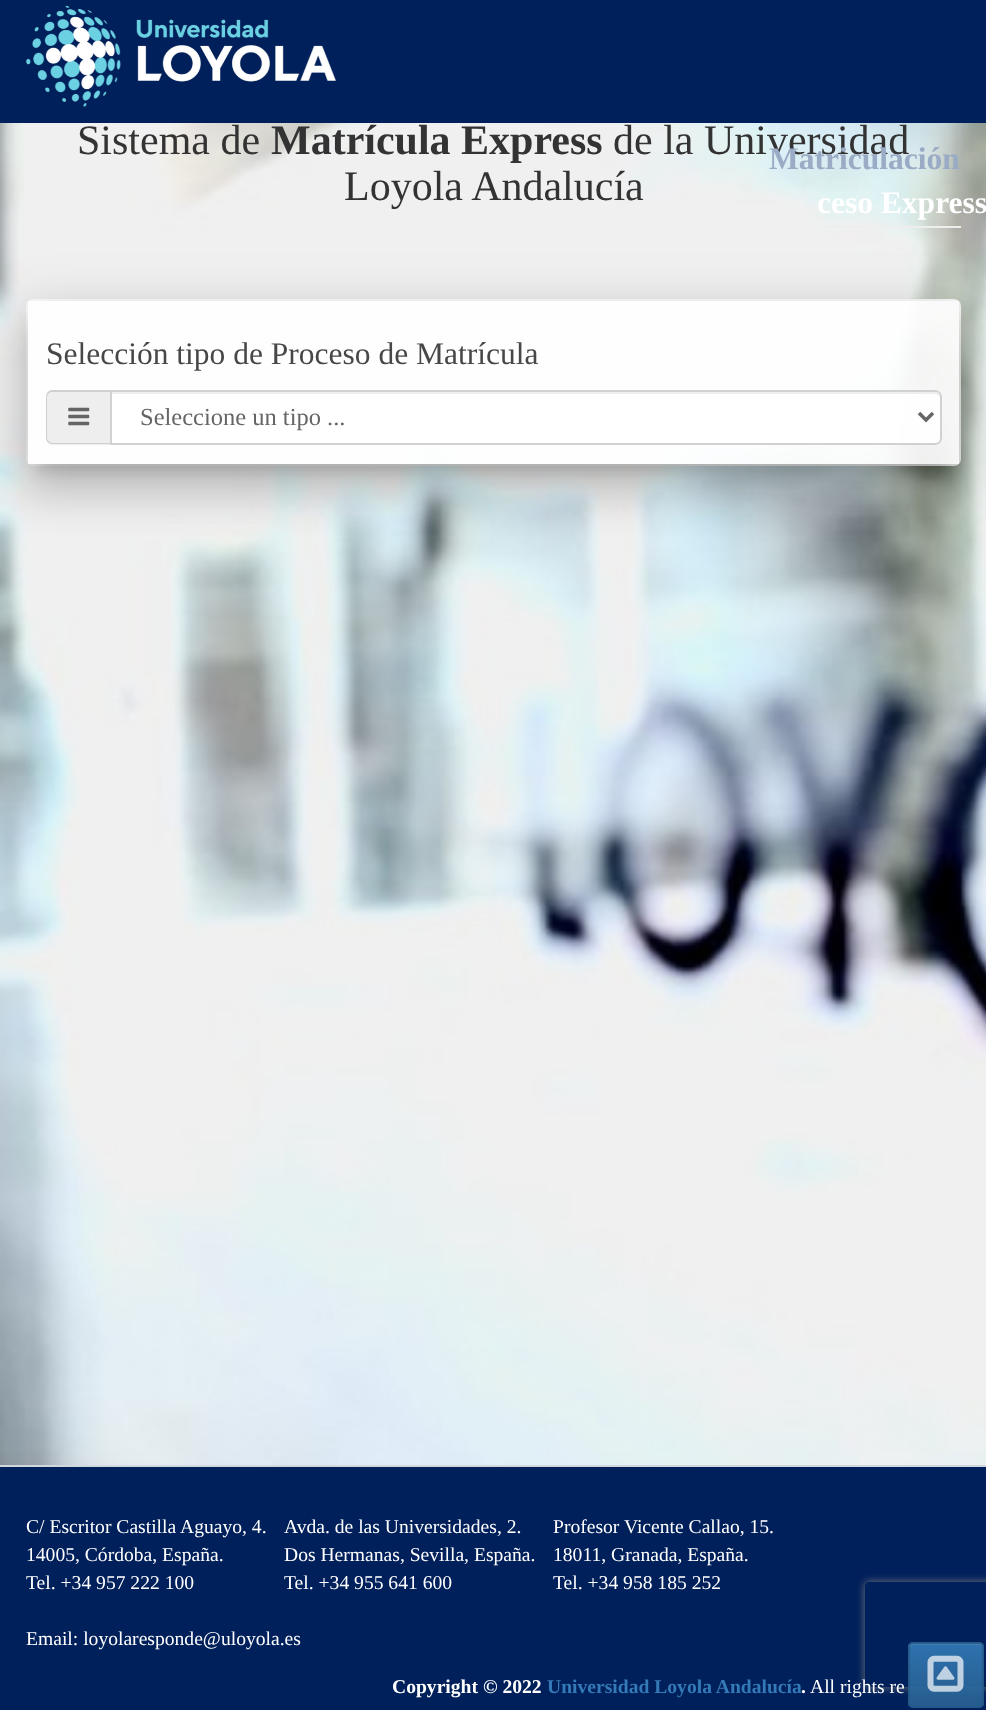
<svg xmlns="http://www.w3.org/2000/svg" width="986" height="1710">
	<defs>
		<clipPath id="clip1"><path d="M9 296H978V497H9ZM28 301H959V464H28Z" clip-rule="evenodd" /></clipPath>
		<clipPath id="clip2"><path d="M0 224H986V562H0ZM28 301H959V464H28Z" clip-rule="evenodd" /></clipPath>
		<clipPath id="clip3"><path d="M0 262H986V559H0ZM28 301H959V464H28Z" clip-rule="evenodd" /></clipPath>
		<clipPath id="clip4"><path d="M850 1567H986V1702H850ZM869 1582H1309C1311 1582 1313 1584 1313 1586V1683C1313 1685 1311 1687 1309 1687H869C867 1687 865 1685 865 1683V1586C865 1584 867 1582 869 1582Z" clip-rule="evenodd" /></clipPath>
		<clipPath id="clip5"><rect x="908" y="1642" width="76" height="66" rx="5" /></clipPath>
		<linearGradient id="g1" gradientUnits="userSpaceOnUse" x1="946" y1="1643" x2="946" y2="1706"><stop offset="0" stop-color="#337AB7" stop-opacity="0.7" /><stop offset="1" stop-color="#265A88" stop-opacity="0.7" /></linearGradient>
	</defs>
	<rect width="100%" height="100%" fill="#FFFFFF" />
	<image x="0" y="123" width="986" height="1342" href="assets/img1.png" />
	<rect x="820" y="226" width="141" height="2" fill="#EEEEEE" />
	<text x="77" y="154" font-family="Liberation Serif" font-size="42" fill="#333333">Sistema de</text>
	<text x="271" y="154" font-family="Liberation Serif" font-size="42" font-weight="700" fill="#333333">Matrícula Express</text>
	<g font-family="Liberation Serif" font-size="42" fill="#333333">
		<text x="613" y="154">de la Universidad</text>
		<text x="344" y="200">Loyola Andalucía</text>
	</g>
	<rect x="26" y="299" width="935" height="167" rx="7" fill="#FFFFFF" fill-opacity="0.9" />
	<g clip-path="url(#clip1)">
		<rect x="37" y="324" width="913" height="145" fill="#000000" fill-opacity="0.18" filter="blur(9px)" />
	</g>
	<g clip-path="url(#clip2)">
		<rect x="19" y="303" width="949" height="180" fill="#000000" fill-opacity="0.11" filter="blur(26px)" />
	</g>
	<g clip-path="url(#clip3)">
		<rect x="25" y="326" width="938" height="169" fill="#000000" fill-opacity="0.13" filter="blur(21px)" />
	</g>
	<text x="46" y="364" font-family="Liberation Serif" font-size="31.5" fill="#474747">Selección tipo de Proceso de Matrícula</text>
	<path d="M53 390H110V445H53C49 445 46 442 46 438V397C46 393 49 390 53 390Z" fill="#EEEEEE" />
	<path d="M52 390H110V444H52C49 444 46 441 46 438V397C46 393 49 390 52 390ZM52 392H110V443H52C50 443 47 440 47 438V397C47 394 50 392 52 392Z" fill="#D0D0D0" fill-rule="evenodd" />
	<image x="68" y="407" width="22" height="19" href="assets/img2.png" />
	<path d="M110 390H935C939 390 942 393 942 397V438C942 442 939 445 935 445H110Z" fill="#FFFFFF" fill-opacity="0.9" />
	<path d="M112 394H934C937 394 940 396 940 399C940 396 939 392 935 392H112Z" fill="#EEEEEE" />
	<path d="M111 391H935C938.5 391 941 393.5 941 397V438C941 441.5 938.5 444 935 444H111Z" fill="none" stroke="#CCCCCC" stroke-opacity="0.9" stroke-width="2" />
	<path d="M919 413L926 420L933 413" fill="none" stroke="#666666" stroke-width="3.5" />
	<text x="140" y="425" font-family="Liberation Serif" font-size="24.5" fill="#656565">Seleccione un tipo ...</text>
	<rect x="0" y="1467" width="986" height="243" fill="#00205B" />
	<g clip-path="url(#clip4)">
		<rect x="865" y="1582" width="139" height="105" rx="4" fill="#808080" fill-opacity="0.9" filter="blur(4.5px)" />
	</g>
	<rect x="908" y="1642" width="76" height="66" rx="5" fill="#337AB7" fill-opacity="0.7" />
	<g clip-path="url(#clip5)">
		<rect x="908" y="1643" width="76" height="63" fill="url(#g1)" />
	</g>
	<path d="M914 1645H978C980 1645 982 1647 982 1648C982 1640 972 1643 967 1643H925C920 1643 910 1640 910 1648C910 1647 912 1645 914 1645Z" fill="#B3BCCE" fill-opacity="0.15" />
	<rect x="909" y="1643" width="74" height="64" rx="4" fill="none" stroke="#245580" stroke-opacity="0.7" stroke-width="2" />
	<image x="927" y="1655" width="37" height="37" href="assets/img3.png" />
	<rect x="0" y="0" width="986" height="123" fill="#00205B" />
	<image x="26" y="5" width="310" height="102" href="assets/img4.png" />
	<text x="769" y="169" font-family="Liberation Serif" font-size="31.5" font-weight="700" fill="#9AABC5">Matriculación</text>
	<text x="817" y="213" font-family="Liberation Serif" font-size="31.5" font-weight="700" fill="#FFFFFF">ceso Express</text>
	<rect x="0" y="1465" width="986" height="2" fill="#D2D6DE" />
	<g font-family="Liberation Serif" font-size="19.6" fill="#FFFFFF">
		<text x="26" y="1533">C/ Escritor Castilla Aguayo, 4.</text>
		<text x="26" y="1561">14005, Córdoba, España.</text>
		<text x="26" y="1589">Tel. +34 957 222 100</text>
		<text x="284" y="1533">Avda. de las Universidades, 2.</text>
		<text x="284" y="1561">Dos Hermanas, Sevilla, España.</text>
		<text x="284" y="1589">Tel. +34 955 641 600</text>
		<text x="553" y="1533">Profesor Vicente Callao, 15.</text>
		<text x="553" y="1561">18011, Granada, España.</text>
		<text x="553" y="1589">Tel. +34 958 185 252</text>
		<text x="26" y="1645">Email: loyolaresponde@uloyola.es</text>
	</g>
	<text x="392" y="1693" font-family="Liberation Serif" font-size="19.6" font-weight="700" fill="#FFFFFF">Copyright © 2022</text>
	<text x="547" y="1693" font-family="Liberation Serif" font-size="19.6" font-weight="700" fill="#337AB7">Universidad Loyola Andalucía</text>
	<text x="801" y="1693" font-family="Liberation Serif" font-size="19.6" font-weight="700" fill="#FFFFFF">.</text>
	<text x="810" y="1693" font-family="Liberation Serif" font-size="19.6" fill="#FFFFFF">All rights re</text>
</svg>
